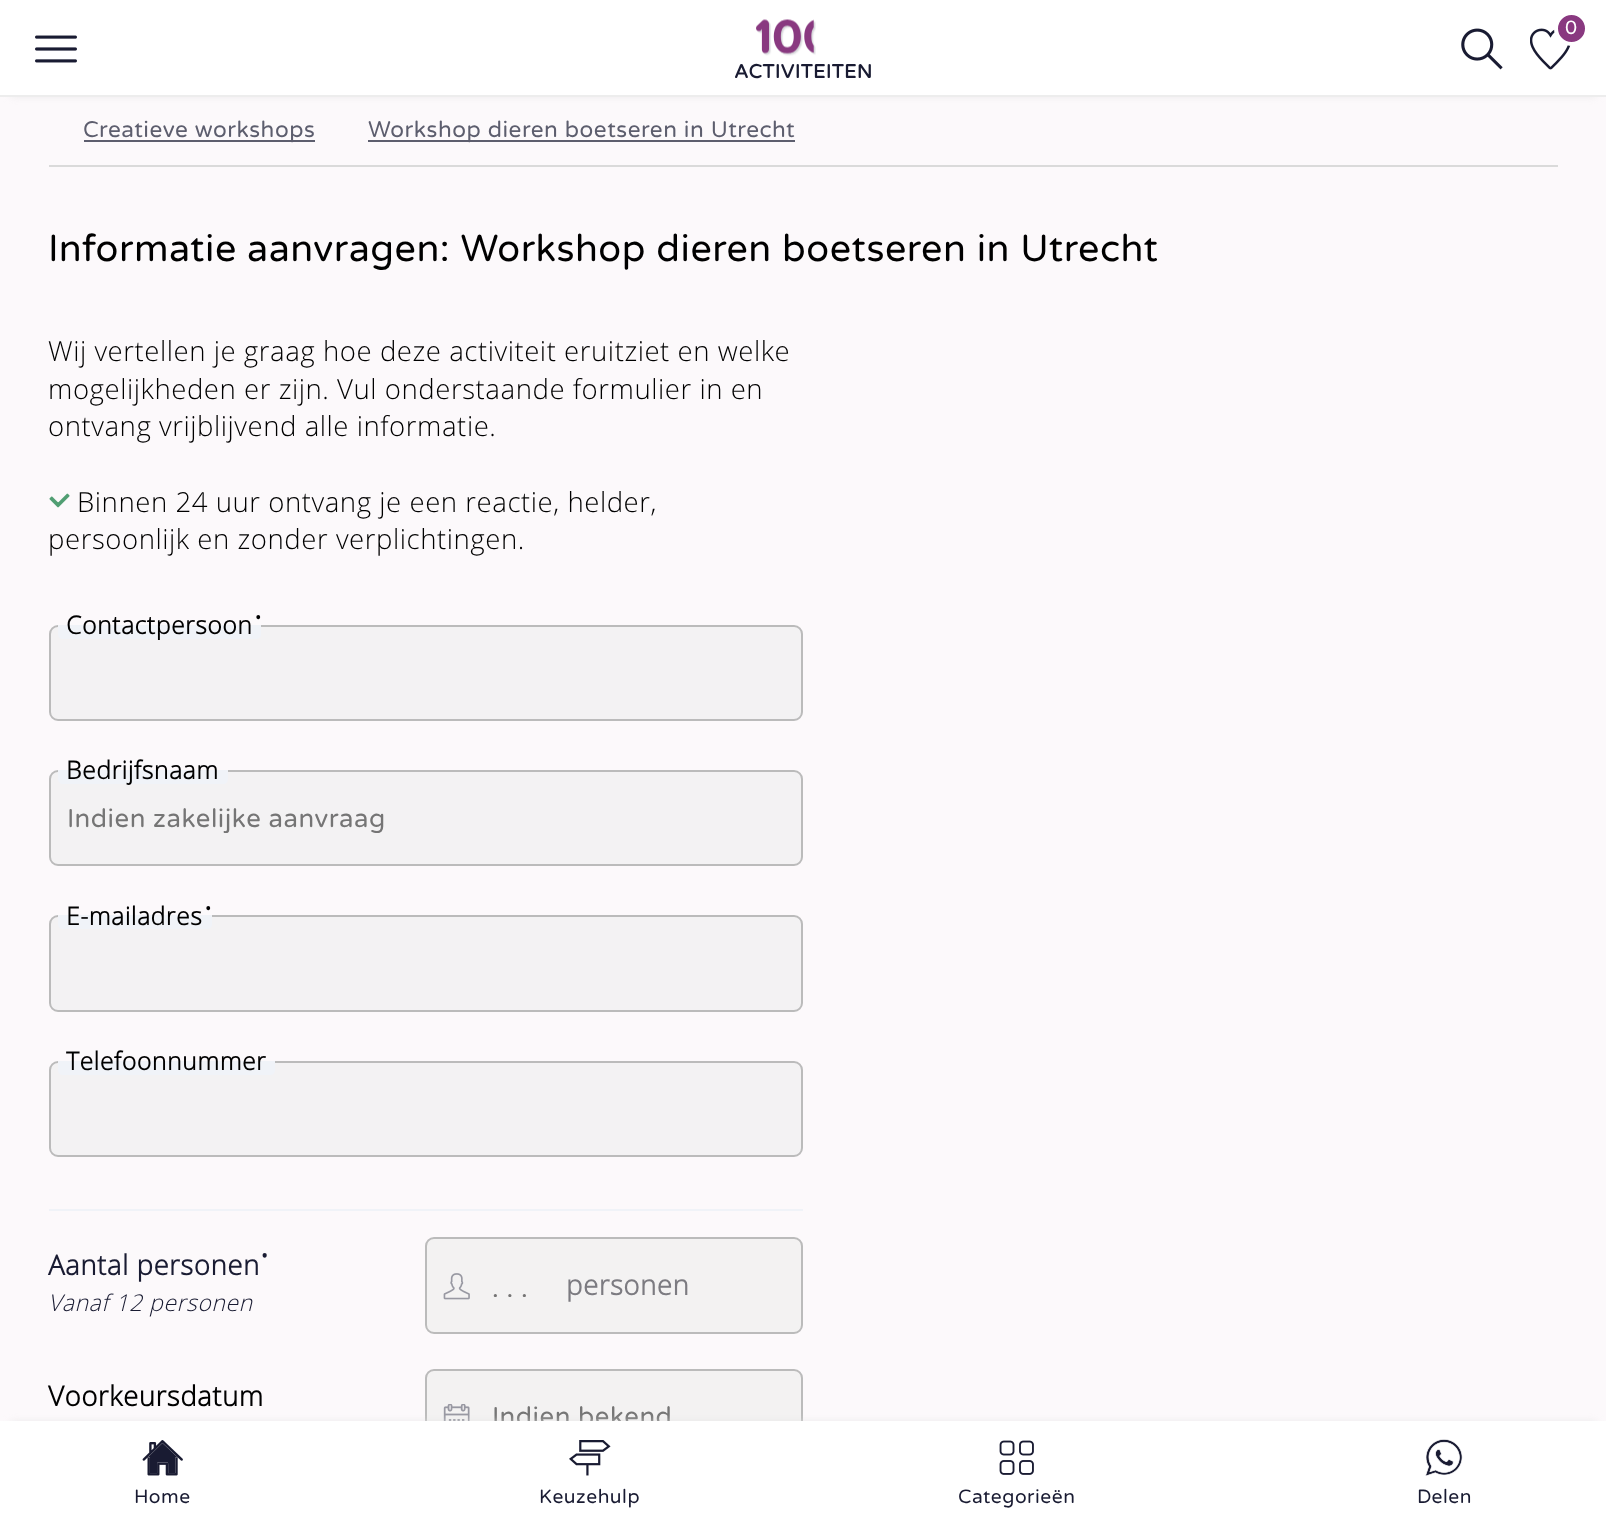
<svg xmlns="http://www.w3.org/2000/svg" width="1606" height="1516">
	<defs>
		<clipPath id="clip1"><rect x="68" y="803" width="716" height="30" /></clipPath>
	</defs>
	<rect width="100%" height="100%" fill="#FCF9FB" />
	<rect x="11" y="19" width="1585" height="76" fill="#E3E3E3" filter="blur(4.5px)" />
	<rect x="0" y="0" width="1606" height="95" fill="#FFFFFF" />
	<rect x="0" y="95" width="1606" height="2" fill="#EDEDED" />
	<image x="1461" y="28" width="42" height="42" href="assets/img1.png" />
	<image x="1530" y="28" width="41" height="42" href="assets/img2.png" />
	<circle cx="1571.5" cy="28.5" r="15.5" fill="#893980" stroke="#FFFFFF" stroke-width="4" />
	<text x="1565" y="34" font-family="Varela Round" font-size="19.25" letter-spacing="0.53" fill="#FFFFFF">0</text>
	<image x="35" y="35" width="42" height="28" href="assets/img3.png" />
	<image x="756" y="19" width="60" height="37" href="assets/img4.png" />
	<text x="734" y="78" font-family="Varela Round" font-size="19.25" font-weight="700" letter-spacing="0.53" fill="#191B32">ACTIVITEITEN</text>
	<rect x="49" y="165" width="1509" height="2" fill="#DADADA" />
	<rect x="84" y="140" width="231" height="2" fill="#5D5E6E" />
	<text x="83" y="137" font-family="Varela Round" font-size="22.6" letter-spacing="0.53" fill="#5D5E6E">Creatieve workshops</text>
	<rect x="368" y="140" width="427" height="2" fill="#5D5E6E" />
	<text x="368" y="137" font-family="Varela Round" font-size="22.6" letter-spacing="0.53" fill="#5D5E6E">Workshop dieren boetseren in Utrecht</text>
	<text x="48" y="261" font-family="Varela Round" font-size="37.6" letter-spacing="0.53" fill="#000000">Informatie aanvragen: Workshop dieren boetseren in Utrecht</text>
	<g font-family="Open Sans" font-size="27.6" font-weight="300" letter-spacing="0.53" fill="#000000">
		<text x="48" y="361">Wij vertellen je graag hoe deze activiteit eruitziet en welke</text>
		<text x="48" y="399">mogelijkheden er zijn. Vul onderstaande formulier in en</text>
		<text x="48" y="436">ontvang vrijblijvend alle informatie.</text>
	</g>
	<image x="49" y="493" width="21" height="15" href="assets/img5.png" />
	<g font-family="Open Sans" font-size="27.6" font-weight="300" letter-spacing="0.53" fill="#000000">
		<text x="77" y="512">Binnen 24 uur ontvang je een reactie, helder,</text>
		<text x="48" y="549">persoonlijk en zonder verplichtingen.</text>
	</g>
	<rect x="49" y="1209" width="754" height="2" fill="#F0F3F8" />
	<rect x="50" y="626" width="752" height="94" rx="8" fill="#F3F2F3" stroke="#BBBBBB" stroke-width="2" />
	<path d="M58 625H261V634C261 637 259 639 256 639H63C60 639 58 637 58 634Z" fill="#F0F3F8" />
	<text x="66" y="634" font-family="Open Sans" font-size="24.75" font-weight="700" letter-spacing="0.53" fill="#000000">Contactpersoon</text>
	<text x="254" y="625" font-family="Open Sans" font-size="21" font-weight="700" letter-spacing="0.53" fill="#000000">•</text>
	<rect x="50" y="771" width="752" height="94" rx="8" fill="#F3F2F3" stroke="#BBBBBB" stroke-width="2" />
	<path d="M58 770H228V779C228 782 226 784 223 784H63C60 784 58 782 58 779Z" fill="#F0F3F8" />
	<text x="66" y="779" font-family="Open Sans" font-size="24.75" font-weight="700" letter-spacing="0.53" fill="#000000">Bedrijfsnaam</text>
	<g clip-path="url(#clip1)">
		<text x="67" y="827" font-family="Varela Round" font-size="25.75" letter-spacing="0.53" fill="#757575">Indien zakelijke aanvraag</text>
	</g>
	<rect x="50" y="916" width="752" height="95" rx="8" fill="#F3F2F3" stroke="#BBBBBB" stroke-width="2" />
	<path d="M58 915H212V924C212 927 210 929 207 929H63C60 929 58 927 58 924Z" fill="#F0F3F8" />
	<text x="66" y="925" font-family="Open Sans" font-size="24.75" font-weight="700" letter-spacing="0.53" fill="#000000">E-mailadres</text>
	<text x="204" y="916" font-family="Open Sans" font-size="21" font-weight="700" letter-spacing="0.53" fill="#000000">•</text>
	<rect x="50" y="1062" width="752" height="94" rx="8" fill="#F3F2F3" stroke="#BBBBBB" stroke-width="2" />
	<path d="M58 1061H275V1070C275 1073 273 1075 270 1075H63C60 1075 58 1073 58 1070Z" fill="#F0F3F8" />
	<text x="66" y="1070" font-family="Open Sans" font-size="24.75" font-weight="700" letter-spacing="0.53" fill="#000000">Telefoonnummer</text>
	<text x="48" y="1275" font-family="Open Sans" font-size="27.6" font-weight="700" letter-spacing="0.53" fill="#191B32">Aantal personen</text>
	<text x="260" y="1264" font-family="Open Sans" font-size="23" font-weight="700" letter-spacing="0.53" fill="#191B32">•</text>
	<text x="48" y="1311" font-family="Open Sans" font-size="23" font-weight="300" font-style="italic" letter-spacing="0.53" fill="#191B32">Vanaf 12 personen</text>
	<image x="443" y="1273" width="27" height="27" href="assets/img6.png" />
	<rect x="426" y="1238" width="376" height="95" rx="8" fill="#EDEDED" fill-opacity="0.6" stroke="#BBBBBB" stroke-width="2" />
	<text x="492" y="1297" font-family="Varela Round" font-size="25.75" letter-spacing="0.53" fill="#757575">. . .</text>
	<text x="566" y="1295" font-family="Open Sans" font-size="27.6" font-weight="700" letter-spacing="0.53" fill="#7C7B81">personen</text>
	<text x="48" y="1406" font-family="Open Sans" font-size="27.6" font-weight="700" letter-spacing="0.53" fill="#000000">Voorkeursdatum</text>
	<image x="443" y="1404" width="27" height="17" href="assets/img7.png" />
	<rect x="426" y="1370" width="376" height="94" rx="8" fill="#EDEDED" fill-opacity="0.6" stroke="#BBBBBB" stroke-width="2" />
	<text x="492" y="1425" font-family="Varela Round" font-size="25.75" letter-spacing="0.53" fill="#757575">Indien bekend</text>
	<rect x="11" y="1423" width="1585" height="75" fill="#E3E3E3" filter="blur(4.5px)" />
	<rect x="0" y="1421" width="1606" height="95" fill="#FFFFFF" />
	<image x="142" y="1440" width="41" height="36" href="assets/img8.png" />
	<text x="134" y="1503" font-family="Varela Round" font-size="19.25" letter-spacing="0.53" fill="#191B32">Home</text>
	<image x="569" y="1440" width="42" height="36" href="assets/img9.png" />
	<text x="539" y="1503" font-family="Varela Round" font-size="19.25" letter-spacing="0.53" fill="#191B32">Keuzehulp</text>
	<image x="999" y="1440" width="35" height="35" href="assets/img10.png" />
	<text x="958" y="1503" font-family="Varela Round" font-size="19.25" letter-spacing="0.53" fill="#191B32">Categorieën</text>
	<image x="1425" y="1439" width="38" height="37" href="assets/img11.png" />
	<text x="1417" y="1503" font-family="Varela Round" font-size="19.25" letter-spacing="0.53" fill="#191B32">Delen</text>
</svg>
